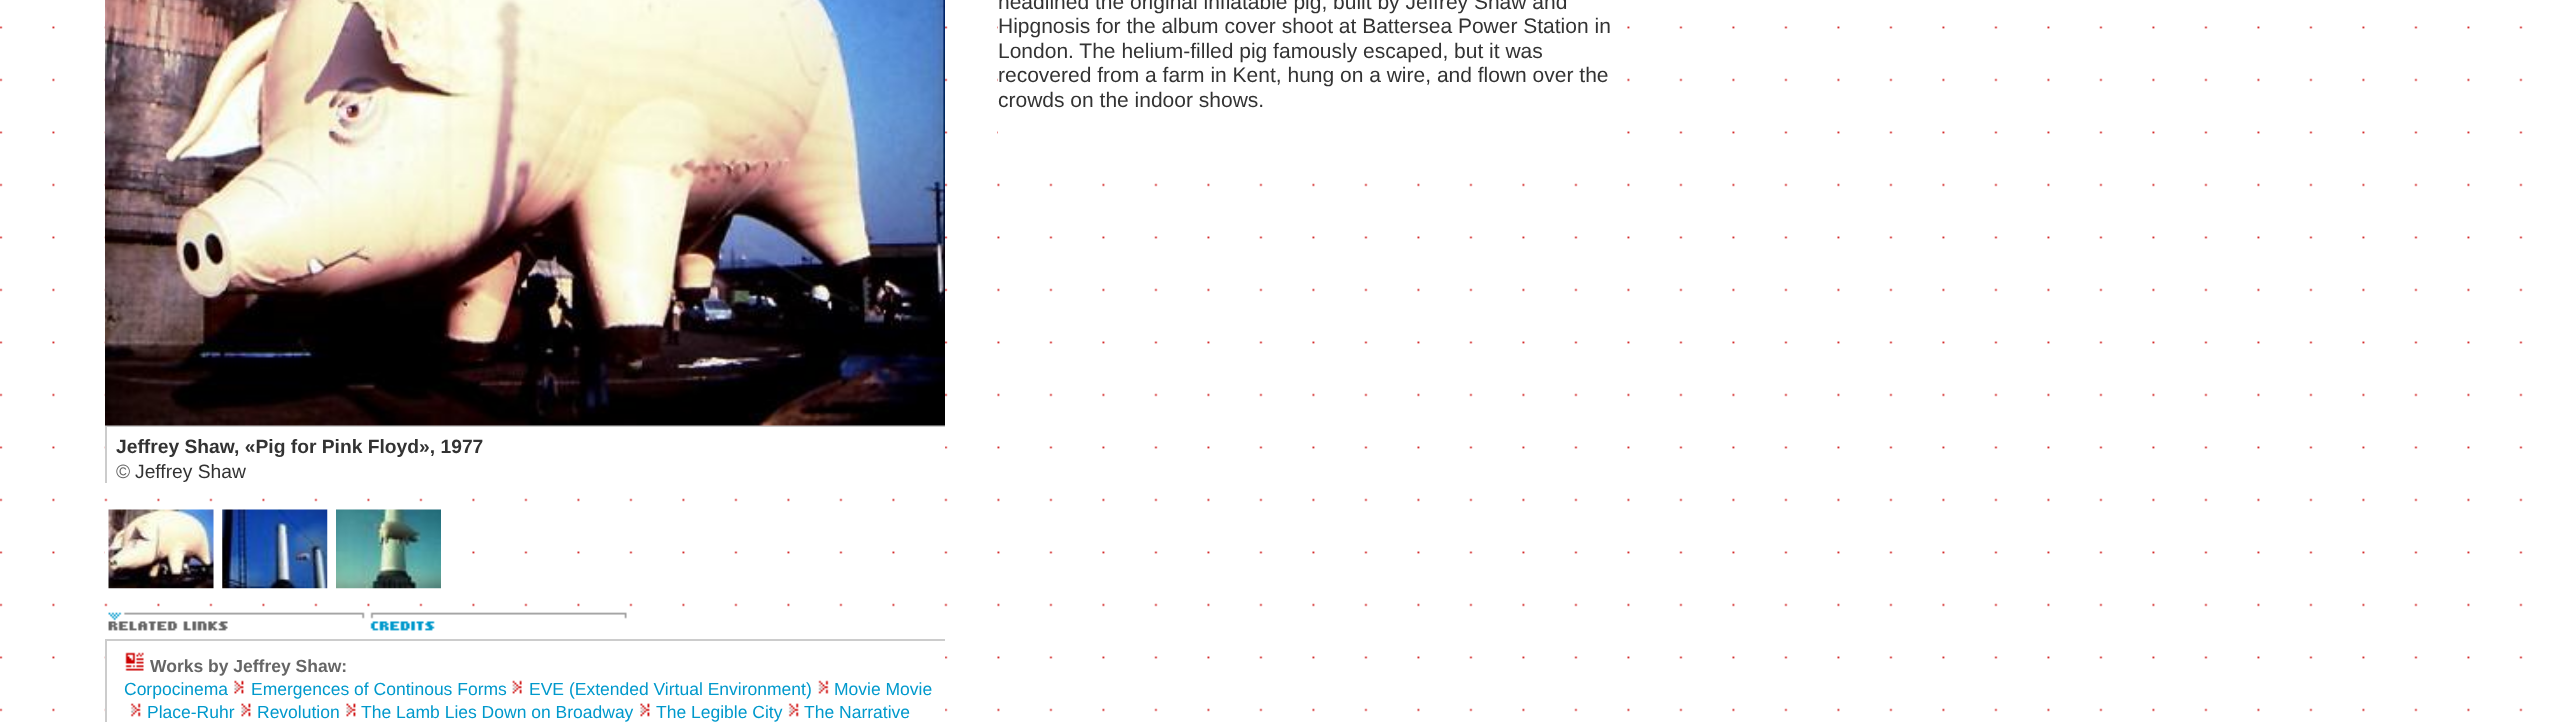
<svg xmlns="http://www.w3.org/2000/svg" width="2552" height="722">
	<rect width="100%" height="100%" fill="#FFFFFF" />
	<image x="0" y="26" width="2523" height="686" href="assets/img1.png" />
	<rect x="998" y="26" width="580" height="108" fill="#FFFFFF" />
	<g font-family="Liberation Sans" font-size="21" fill="#333333">
		<text x="998" y="9">headlined the original inflatable pig, built by Jeffrey Shaw and</text>
		<text x="998" y="33">Hipgnosis for the album cover shoot at Battersea Power Station in</text>
		<text x="998" y="58">London. The helium-filled pig famously escaped, but it was</text>
		<text x="998" y="82">recovered from a farm in Kent, hung on a wire, and flown over the</text>
		<text x="998" y="107">crowds on the indoor shows.</text>
	</g>
	<rect x="107" y="446" width="838" height="3" fill="#FFFFFF" />
	<rect x="105" y="425" width="840" height="2" fill="#CCCCCC" />
	<image x="105" y="0" width="840" height="426" href="assets/img2.png" />
	<rect x="105" y="427" width="2" height="56" fill="#CCCCCC" />
	<text x="116" y="453" font-family="Liberation Sans" font-size="19.25" font-weight="700" fill="#333333">Jeffrey Shaw, «Pig for Pink Floyd», 1977</text>
	<text x="116" y="478" font-family="Liberation Sans" font-size="19.25" fill="#666666">©</text>
	<text x="135" y="478" font-family="Liberation Sans" font-size="19.25" fill="#333333">Jeffrey Shaw</text>
	<rect x="107" y="508" width="108" height="82" fill="none" stroke="#FFFFFF" stroke-width="4" />
	<image x="108" y="509" width="106" height="80" href="assets/img3.png" />
	<image x="222" y="509" width="106" height="80" href="assets/img4.png" />
	<image x="336" y="509" width="105" height="80" href="assets/img5.png" />
	<image x="108" y="612" width="257" height="19" href="assets/img6.png" />
	<image x="370" y="612" width="257" height="19" href="assets/img7.png" />
	<rect x="107" y="656" width="838" height="56" fill="#FFFFFF" />
	<rect x="105" y="639" width="840" height="2" fill="#CCCCCC" />
	<rect x="105" y="639" width="2" height="83" fill="#CCCCCC" />
	<image x="125" y="652" width="19" height="19" href="assets/img8.png" />
	<text x="150" y="672" font-family="Liberation Sans" font-size="17.5" font-weight="700" fill="#666666">Works by Jeffrey Shaw:</text>
	<text x="124" y="695" font-family="Liberation Sans" font-size="17.5" fill="#0099CC">Corpocinema</text>
	<image x="234" y="680" width="10" height="14" href="assets/img9.png" />
	<text x="251" y="695" font-family="Liberation Sans" font-size="17.5" fill="#0099CC">Emergences of Continous Forms</text>
	<image x="512" y="680" width="10" height="14" href="assets/img10.png" />
	<text x="529" y="695" font-family="Liberation Sans" font-size="17.5" fill="#0099CC">EVE (Extended Virtual Environment)</text>
	<image x="818" y="680" width="11" height="14" href="assets/img11.png" />
	<text x="834" y="695" font-family="Liberation Sans" font-size="17.5" fill="#0099CC">Movie Movie</text>
	<image x="130" y="703" width="11" height="14" href="assets/img12.png" />
	<text x="147" y="718" font-family="Liberation Sans" font-size="17.5" fill="#0099CC">Place-Ruhr</text>
	<image x="241" y="703" width="10" height="14" href="assets/img13.png" />
	<text x="257" y="718" font-family="Liberation Sans" font-size="17.5" fill="#0099CC">Revolution</text>
	<image x="346" y="703" width="10" height="14" href="assets/img13.png" />
	<text x="361" y="718" font-family="Liberation Sans" font-size="17.5" fill="#0099CC">The Lamb Lies Down on Broadway</text>
	<image x="640" y="703" width="10" height="14" href="assets/img13.png" />
	<text x="656" y="718" font-family="Liberation Sans" font-size="17.5" fill="#0099CC">The Legible City</text>
	<image x="788" y="703" width="11" height="14" href="assets/img12.png" />
	<text x="804" y="718" font-family="Liberation Sans" font-size="17.5" fill="#0099CC">The Narrative</text>
</svg>
